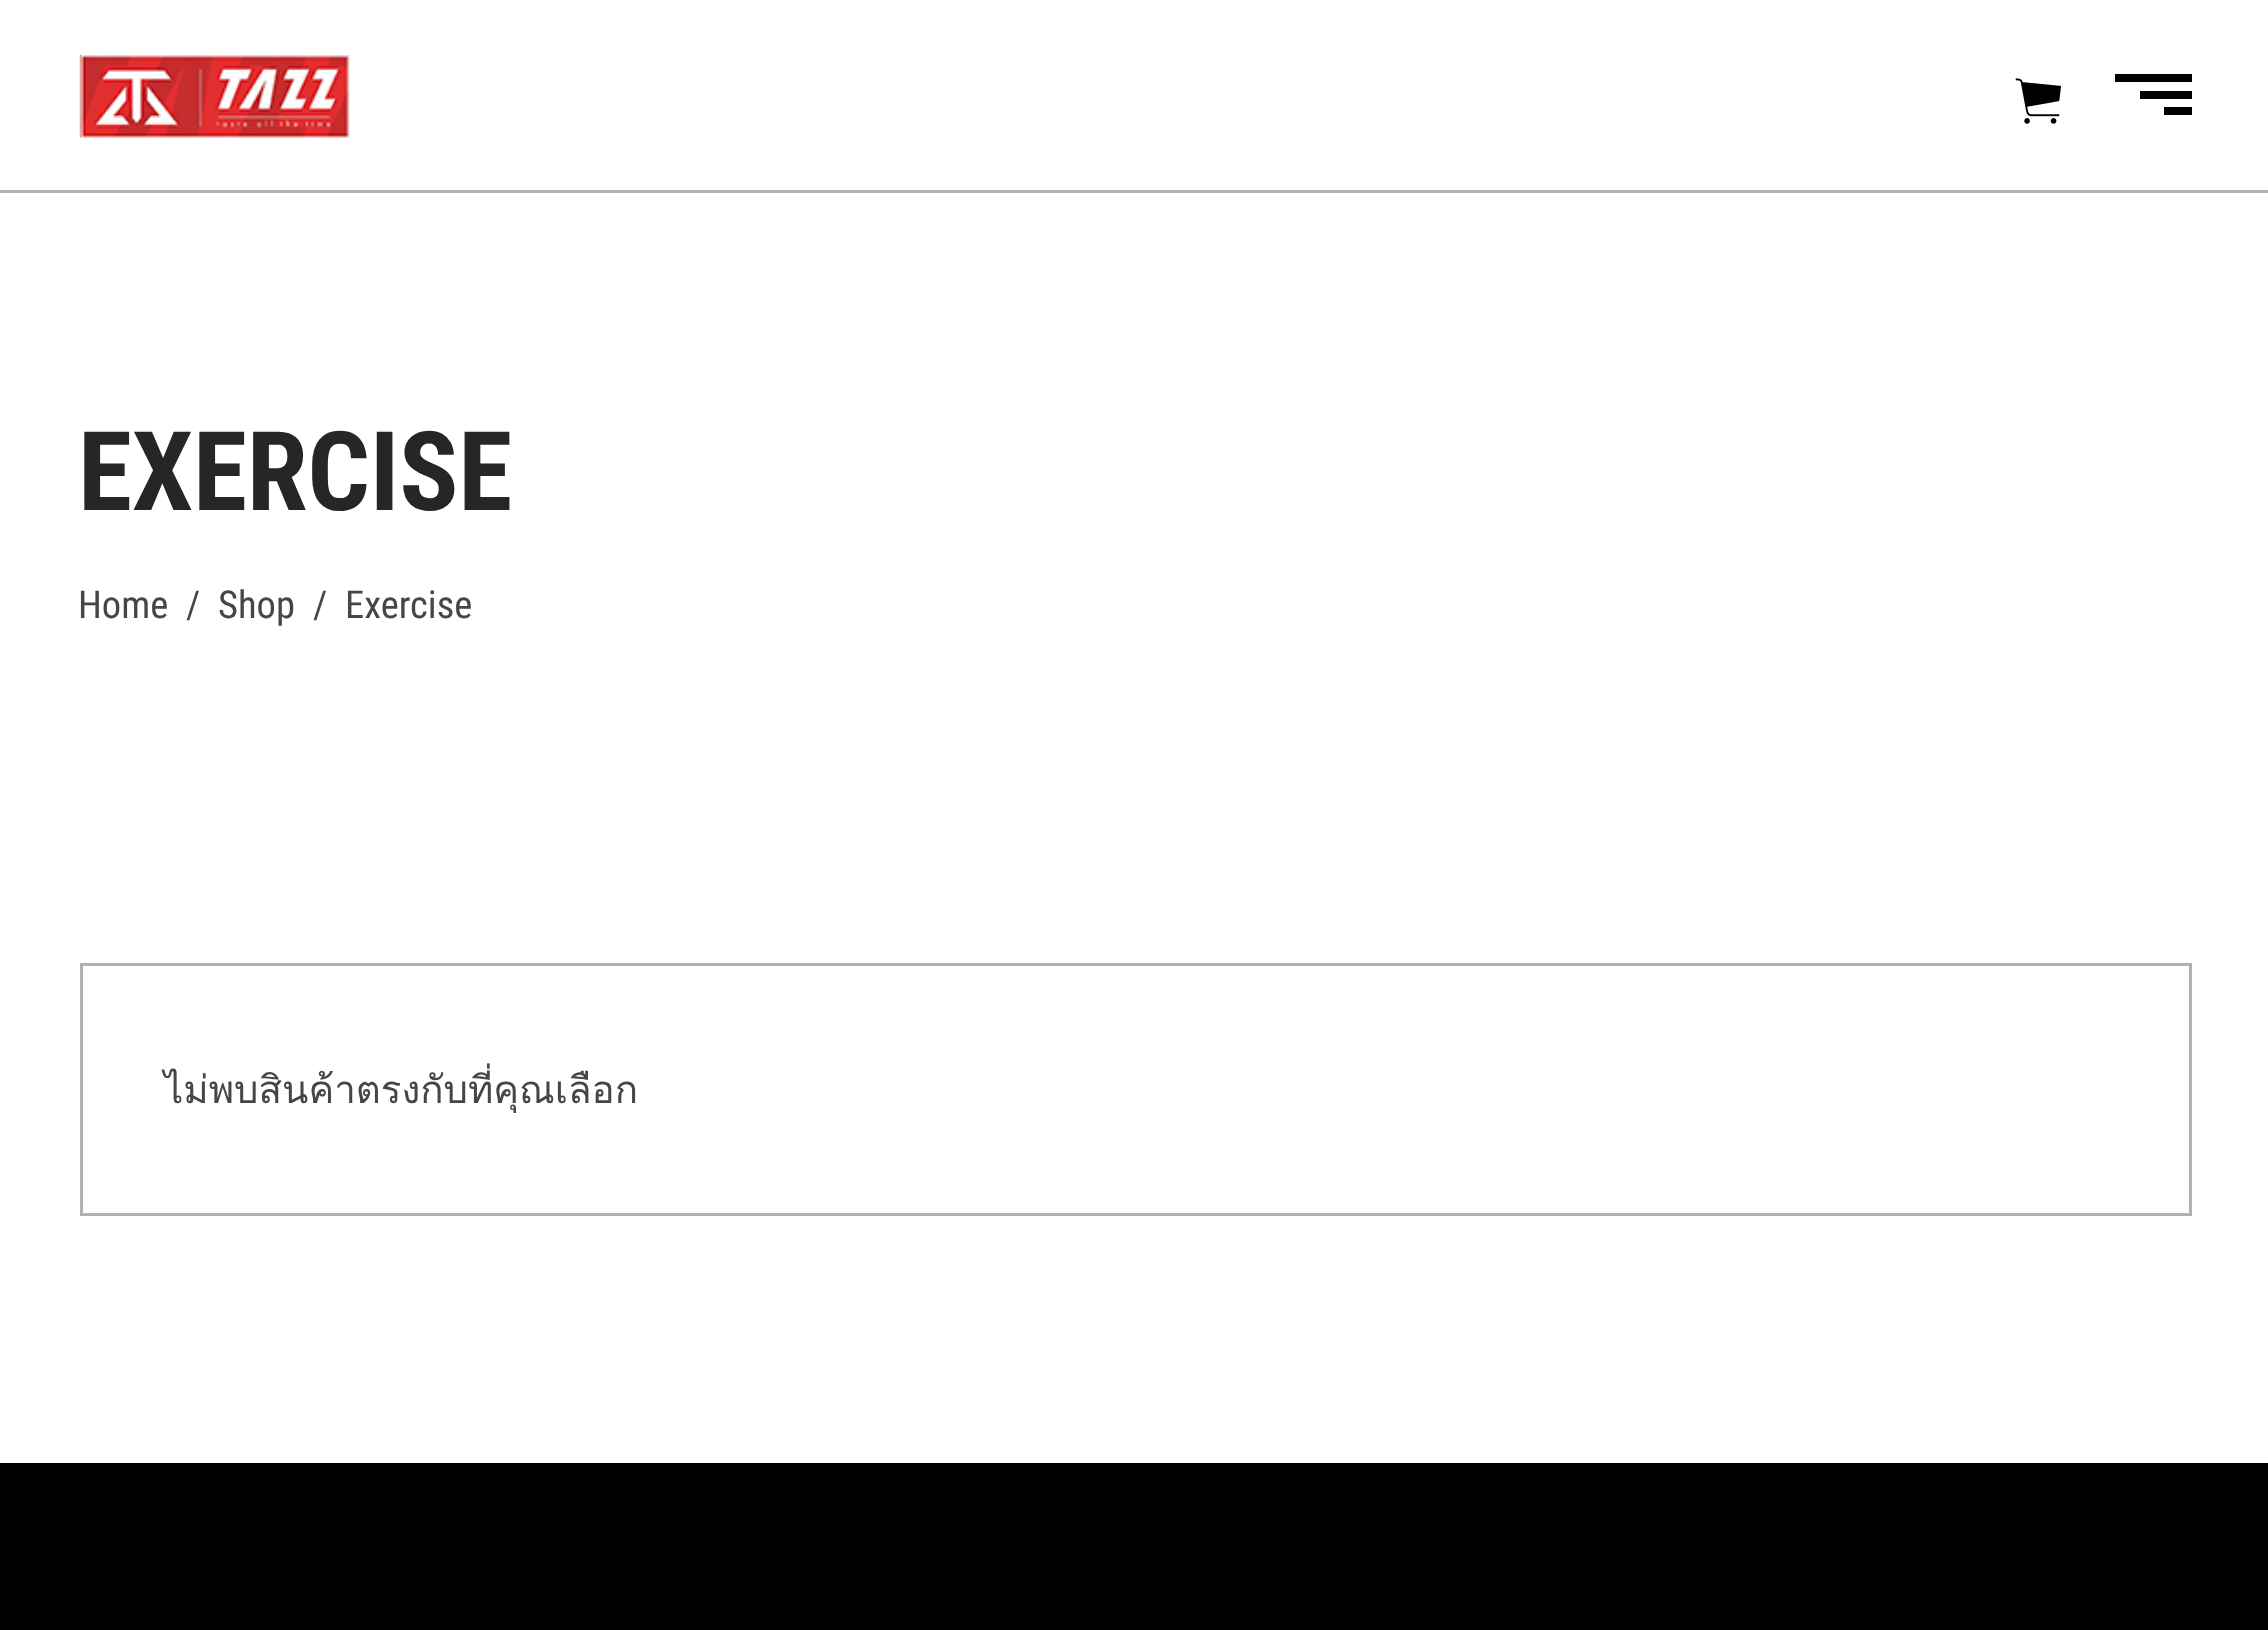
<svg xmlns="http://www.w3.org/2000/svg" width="2268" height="1630">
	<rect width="100%" height="100%" fill="#FFFFFF" />
	<rect x="0" y="190" width="2268" height="3" fill="#B2B2B2" />
	<image x="79" y="55" width="271" height="83" href="assets/img1.png" />
	<image x="2015" y="78" width="47" height="46" href="assets/img2.png" />
	<rect x="2115" y="74" width="77" height="8" fill="#000000" />
	<rect x="2140" y="91" width="52" height="8" fill="#000000" />
	<rect x="2164" y="107" width="28" height="8" fill="#000000" />
	<text x="78" y="510" font-family="Roboto Condensed" font-size="110" font-weight="700" letter-spacing="-0.25" fill="#262626">EXERCISE</text>
	<g font-family="Roboto Condensed" font-size="38.5" fill="#464646">
		<text x="78" y="618">Home</text>
		<text x="186" y="618">/</text>
		<text x="218" y="618">Shop</text>
		<text x="313" y="618">/</text>
		<text x="345" y="618">Exercise</text>
	</g>
	<rect x="81.5" y="964.5" width="2109" height="250" fill="none" stroke="#B2B2B2" stroke-width="3" />
	<text x="164" y="1103" font-family="Loma" font-size="38.5" fill="#464646">ไม่พบสินค้าตรงกับที่คุณเลือก</text>
	<rect x="0" y="1463" width="2268" height="167" fill="#000000" />
</svg>
